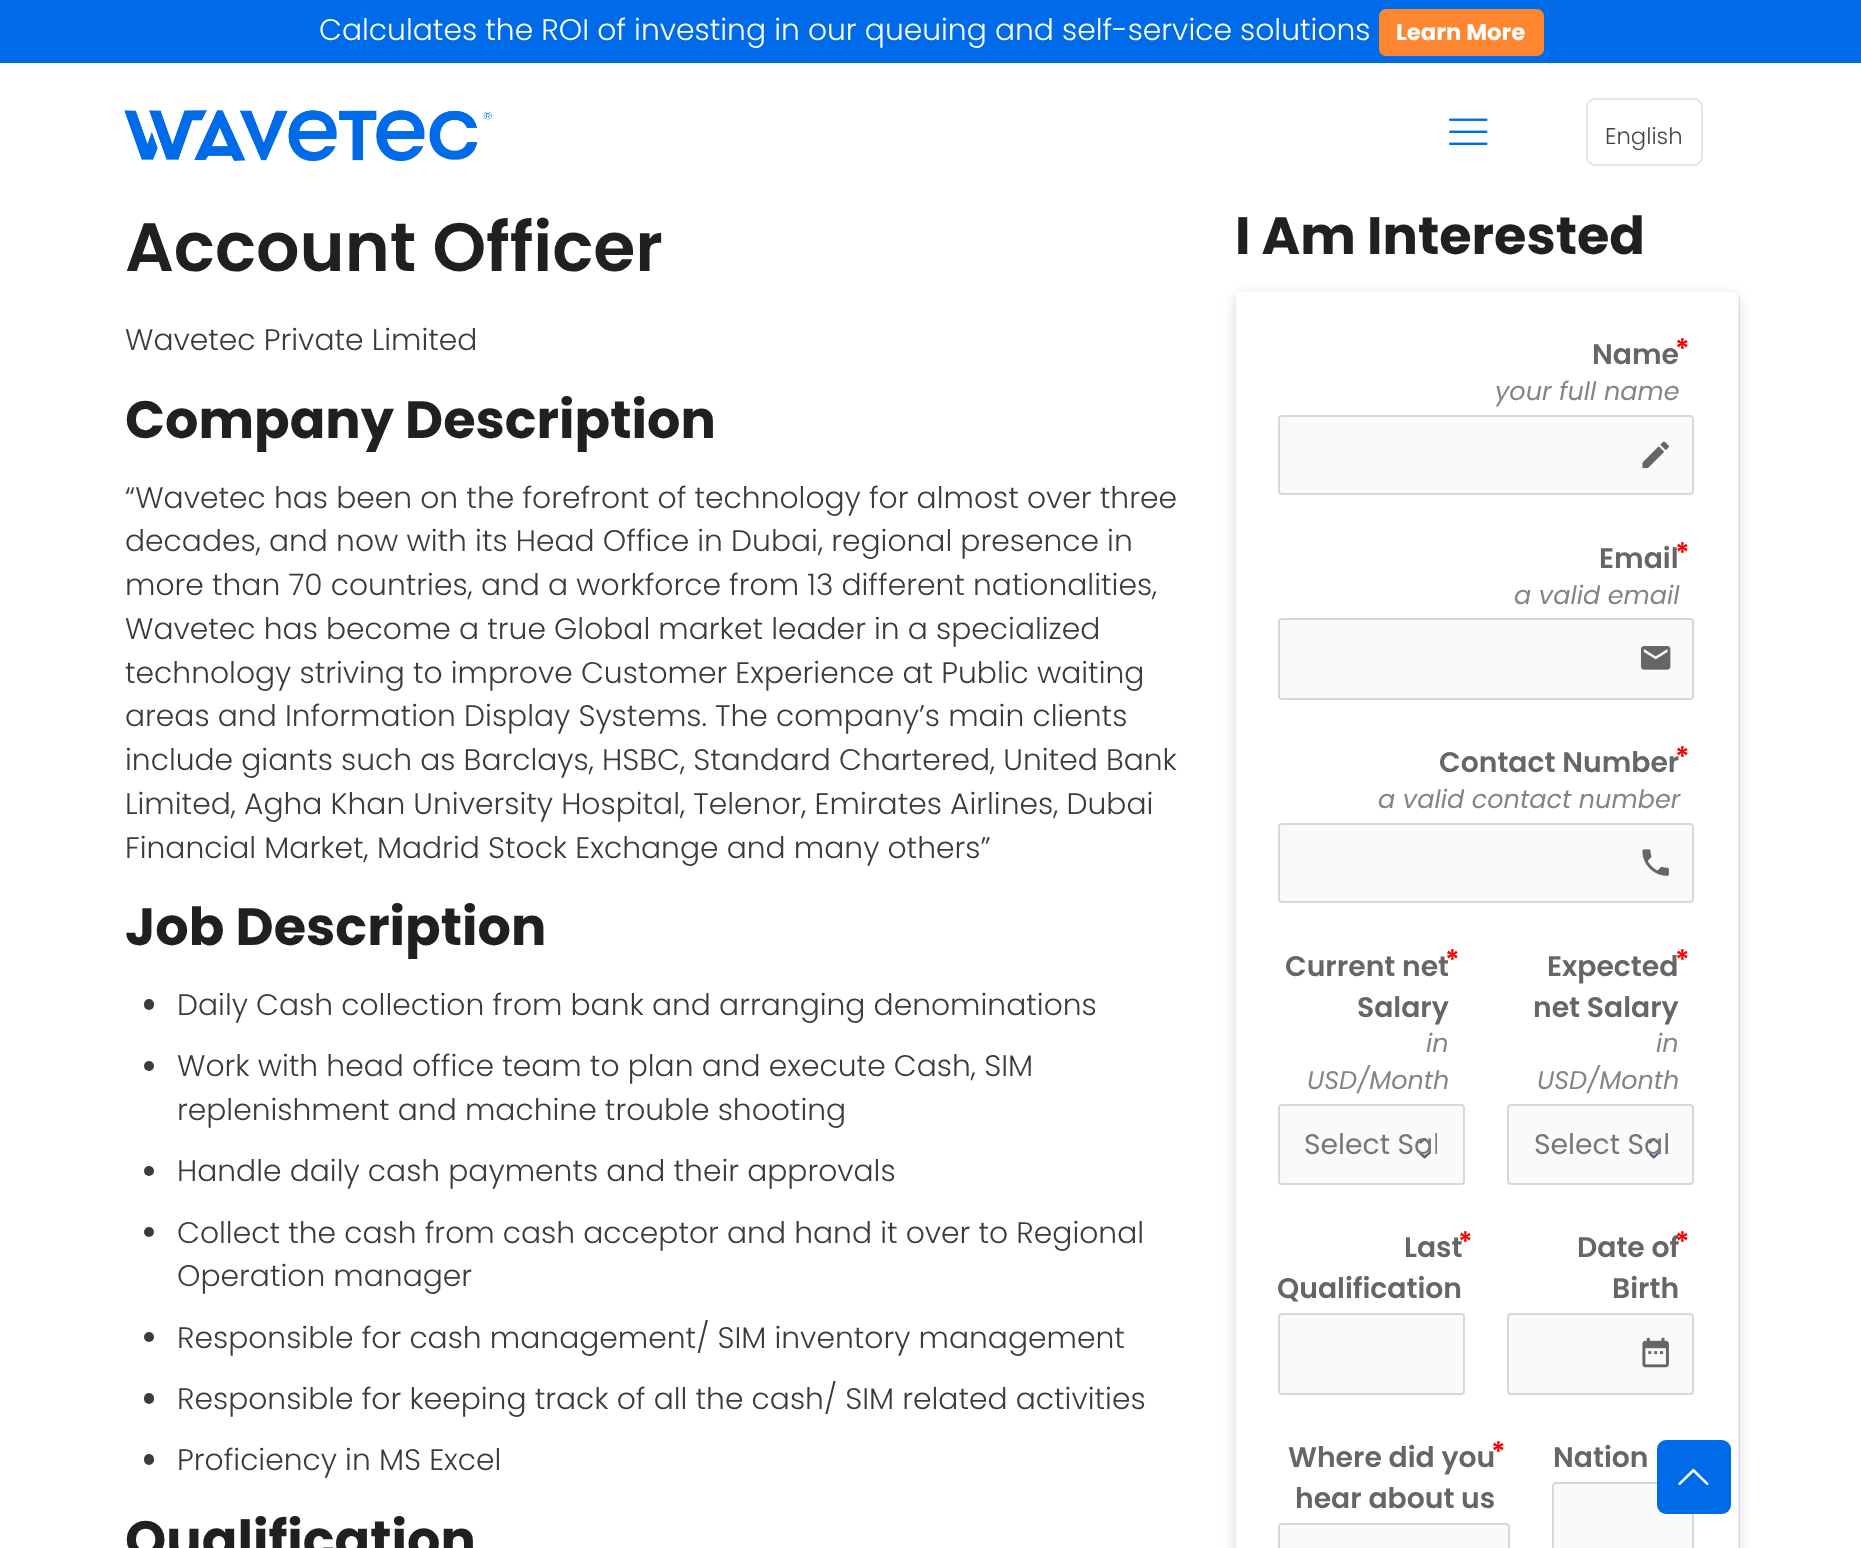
<svg xmlns="http://www.w3.org/2000/svg" width="1861" height="1548">
	<defs>
		<clipPath id="clip1"><rect x="1304" y="1125" width="133" height="41" /></clipPath>
		<clipPath id="clip2"><rect x="1535" y="1125" width="133" height="41" /></clipPath>
	</defs>
	<rect width="100%" height="100%" fill="#FFFFFF" />
	<rect x="0" y="0" width="1861" height="63" fill="#006BE8" />
	<text x="319" y="40" font-family="Poppins" font-size="29.75" font-weight="300" fill="#FFFFFF">Calculates the ROI of investing in our queuing and self-service solutions</text>
	<rect x="1379" y="9" width="165" height="47" rx="7" fill="#FF8630" />
	<text x="1396" y="40" font-family="Poppins" font-size="22.75" font-weight="700" fill="#FFFFFF">Learn More</text>
	<image x="124" y="110" width="368" height="51" href="assets/img1.png" />
	<image x="1449" y="118" width="39" height="27" href="assets/img2.png" />
	<rect x="1587" y="99" width="115" height="66" rx="8" fill="none" stroke="#E6E6E6" stroke-width="2" />
	<text x="1605" y="144" font-family="Poppins" font-size="22.75" font-weight="300" fill="#444444">English</text>
	<text x="125" y="271" font-family="Poppins" font-size="68.25" font-weight="600" fill="#202020">Account Officer</text>
	<text x="125" y="350" font-family="Poppins" font-size="29.75" font-weight="300" fill="#3B3B3B">Wavetec Private Limited</text>
	<text x="125" y="438" font-family="Poppins" font-size="52.5" font-weight="700" fill="#202020">Company Description</text>
	<g font-family="Poppins" font-size="29.75" font-weight="300" fill="#3B3B3B">
		<text x="125" y="508">“Wavetec has been on the forefront of technology for almost over three</text>
		<text x="125" y="551">decades, and now with its Head Office in Dubai, regional presence in</text>
		<text x="125" y="595">more than 70 countries, and a workforce from 13 different nationalities,</text>
		<text x="125" y="639">Wavetec has become a true Global market leader in a specialized</text>
		<text x="125" y="683">technology striving to improve Customer Experience at Public waiting</text>
		<text x="125" y="726">areas and Information Display Systems. The company’s main clients</text>
		<text x="125" y="770">include giants such as Barclays, HSBC, Standard Chartered, United Bank</text>
		<text x="125" y="814">Limited, Agha Khan University Hospital, Telenor, Emirates Airlines, Dubai</text>
		<text x="125" y="858">Financial Market, Madrid Stock Exchange and many others”</text>
	</g>
	<text x="125" y="945" font-family="Poppins" font-size="52.5" font-weight="700" fill="#202020">Job Description</text>
	<rect x="144" y="999" width="10" height="11" rx="5" fill="#3B3B3B" />
	<text x="177" y="1015" font-family="Poppins" font-size="29.75" font-weight="300" fill="#3B3B3B">Daily Cash collection from bank and arranging denominations</text>
	<circle cx="149" cy="1066" r="5" fill="#3B3B3B" />
	<g font-family="Poppins" font-size="29.75" font-weight="300" fill="#3B3B3B">
		<text x="177" y="1076">Work with head office team to plan and execute Cash, SIM</text>
		<text x="177" y="1120">replenishment and machine trouble shooting</text>
	</g>
	<circle cx="149" cy="1171" r="5" fill="#3B3B3B" />
	<text x="177" y="1181" font-family="Poppins" font-size="29.75" font-weight="300" fill="#3B3B3B">Handle daily cash payments and their approvals</text>
	<circle cx="149" cy="1232" r="5" fill="#3B3B3B" />
	<g font-family="Poppins" font-size="29.75" font-weight="300" fill="#3B3B3B">
		<text x="177" y="1243">Collect the cash from cash acceptor and hand it over to Regional</text>
		<text x="177" y="1286">Operation manager</text>
	</g>
	<circle cx="149" cy="1337" r="5" fill="#3B3B3B" />
	<text x="177" y="1348" font-family="Poppins" font-size="29.75" font-weight="300" fill="#3B3B3B">Responsible for cash management/ SIM inventory management</text>
	<rect x="144" y="1393" width="10" height="11" rx="5" fill="#3B3B3B" />
	<text x="177" y="1409" font-family="Poppins" font-size="29.75" font-weight="300" fill="#3B3B3B">Responsible for keeping track of all the cash/ SIM related activities</text>
	<rect x="144" y="1454" width="10" height="11" rx="5" fill="#3B3B3B" />
	<text x="177" y="1470" font-family="Poppins" font-size="29.75" font-weight="300" fill="#3B3B3B">Proficiency in MS Excel</text>
	<g font-family="Poppins" font-size="52.5" font-weight="700" fill="#202020">
		<text x="125" y="1558">Qualification</text>
		<text x="1235" y="254">I Am Interested</text>
	</g>
	<rect x="1236" y="296" width="502" height="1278" rx="5" fill="#32375A" fill-opacity="0.2" filter="blur(7px)" />
	<rect x="1236.45" y="292.45" width="503.1" height="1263.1" rx="6.55" fill="none" stroke="#001428" stroke-opacity="0.1" stroke-width="0.9" />
	<rect x="1236" y="292" width="502" height="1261" rx="5" fill="#FFFFFF" />
	<text x="1592" y="364" font-family="Poppins" font-size="28.25" font-weight="600" fill="#666666">Name</text>
	<text x="1675" y="359" font-family="Poppins" font-size="28.25" font-weight="600" fill="#FF0000">*</text>
	<text x="1495" y="400" font-family="Poppins" font-size="25.5" font-style="italic" fill="#858585">your full name</text>
	<rect x="1279" y="416" width="414" height="78" rx="3" fill="#FAFAFA" stroke="#D6D8D9" stroke-width="2" />
	<image x="1642" y="441" width="27" height="28" href="assets/img3.png" />
	<text x="1599" y="568" font-family="Poppins" font-size="28.25" font-weight="600" fill="#666666">Email</text>
	<text x="1675" y="563" font-family="Poppins" font-size="28.25" font-weight="600" fill="#FF0000">*</text>
	<text x="1514" y="604" font-family="Poppins" font-size="25.5" font-style="italic" fill="#858585">a valid email</text>
	<rect x="1279" y="619" width="414" height="80" rx="3" fill="#FAFAFA" stroke="#D6D8D9" stroke-width="2" />
	<image x="1640" y="646" width="31" height="24" href="assets/img4.png" />
	<text x="1439" y="772" font-family="Poppins" font-size="28.25" font-weight="600" fill="#666666">Contact Number</text>
	<text x="1675" y="767" font-family="Poppins" font-size="28.25" font-weight="600" fill="#FF0000">*</text>
	<text x="1378" y="808" font-family="Poppins" font-size="25.5" font-style="italic" fill="#858585">a valid contact number</text>
	<rect x="1279" y="824" width="414" height="78" rx="3" fill="#FAFAFA" stroke="#D6D8D9" stroke-width="2" />
	<image x="1642" y="849" width="27" height="27" href="assets/img5.png" />
	<text x="1445" y="970" font-family="Poppins" font-size="28.25" font-weight="600" fill="#FF0000">*</text>
	<g font-family="Poppins" font-size="28.25" font-weight="600" fill="#666666">
		<text x="1285" y="976">Current net</text>
		<text x="1357" y="1017">Salary</text>
	</g>
	<g font-family="Poppins" font-size="25.5" font-style="italic" fill="#858585">
		<text x="1426" y="1052">in</text>
		<text x="1307" y="1089">USD/Month</text>
	</g>
	<rect x="1278" y="1104" width="187" height="81" rx="4" fill="#FAFAFA" />
	<image x="1419" y="1138" width="11" height="21" href="assets/img6.png" />
	<rect x="1279" y="1105" width="185" height="79" rx="3" fill="none" stroke="#D6D8D9" stroke-width="2" />
	<g clip-path="url(#clip1)">
		<text x="1304" y="1154" font-family="Poppins" font-size="28.25" fill="#777777">Select Sal</text>
	</g>
	<text x="1547" y="976" font-family="Poppins" font-size="28.25" font-weight="600" fill="#666666">Expected</text>
	<text x="1675" y="970" font-family="Poppins" font-size="28.25" font-weight="600" fill="#FF0000">*</text>
	<text x="1533" y="1017" font-family="Poppins" font-size="28.25" font-weight="600" fill="#666666">net Salary</text>
	<g font-family="Poppins" font-size="25.5" font-style="italic" fill="#858585">
		<text x="1656" y="1052">in</text>
		<text x="1537" y="1089">USD/Month</text>
	</g>
	<rect x="1507" y="1104" width="187" height="81" rx="4" fill="#FAFAFA" />
	<image x="1649" y="1138" width="10" height="21" href="assets/img7.png" />
	<rect x="1508" y="1105" width="185" height="79" rx="3" fill="none" stroke="#D6D8D9" stroke-width="2" />
	<g clip-path="url(#clip2)">
		<text x="1534" y="1154" font-family="Poppins" font-size="28.25" fill="#777777">Select Sal</text>
	</g>
	<text x="1404" y="1257" font-family="Poppins" font-size="28.25" font-weight="600" fill="#666666">Last</text>
	<text x="1458" y="1252" font-family="Poppins" font-size="28.25" font-weight="600" fill="#FF0000">*</text>
	<text x="1277" y="1298" font-family="Poppins" font-size="28.25" font-weight="600" fill="#666666">Qualification</text>
	<rect x="1279" y="1314" width="185" height="80" rx="3" fill="#FAFAFA" stroke="#D6D8D9" stroke-width="2" />
	<text x="1577" y="1257" font-family="Poppins" font-size="28.25" font-weight="600" fill="#666666">Date of</text>
	<text x="1675" y="1252" font-family="Poppins" font-size="28.25" font-weight="600" fill="#FF0000">*</text>
	<text x="1612" y="1298" font-family="Poppins" font-size="28.25" font-weight="600" fill="#666666">Birth</text>
	<rect x="1508" y="1314" width="185" height="80" rx="3" fill="#FAFAFA" stroke="#D6D8D9" stroke-width="2" />
	<image x="1642" y="1337" width="27" height="31" href="assets/img8.png" />
	<text x="1288" y="1467" font-family="Poppins" font-size="28.25" font-weight="600" fill="#666666">Where did you</text>
	<text x="1491" y="1462" font-family="Poppins" font-size="28.25" font-weight="600" fill="#FF0000">*</text>
	<text x="1295" y="1508" font-family="Poppins" font-size="28.25" font-weight="600" fill="#666666">hear about us</text>
	<rect x="1279" y="1524" width="230" height="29" rx="3" fill="#FAFAFA" stroke="#D6D8D9" stroke-width="2" />
	<text x="1553" y="1467" font-family="Poppins" font-size="28.25" font-weight="600" fill="#666666">Nation</text>
	<rect x="1553" y="1483" width="140" height="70" rx="3" fill="#FAFAFA" stroke="#D6D8D9" stroke-width="2" />
	<rect x="1657" y="1440" width="74" height="74" rx="9" fill="#006BE8" />
	<image x="1678" y="1468" width="31" height="18" href="assets/img9.png" />
</svg>
